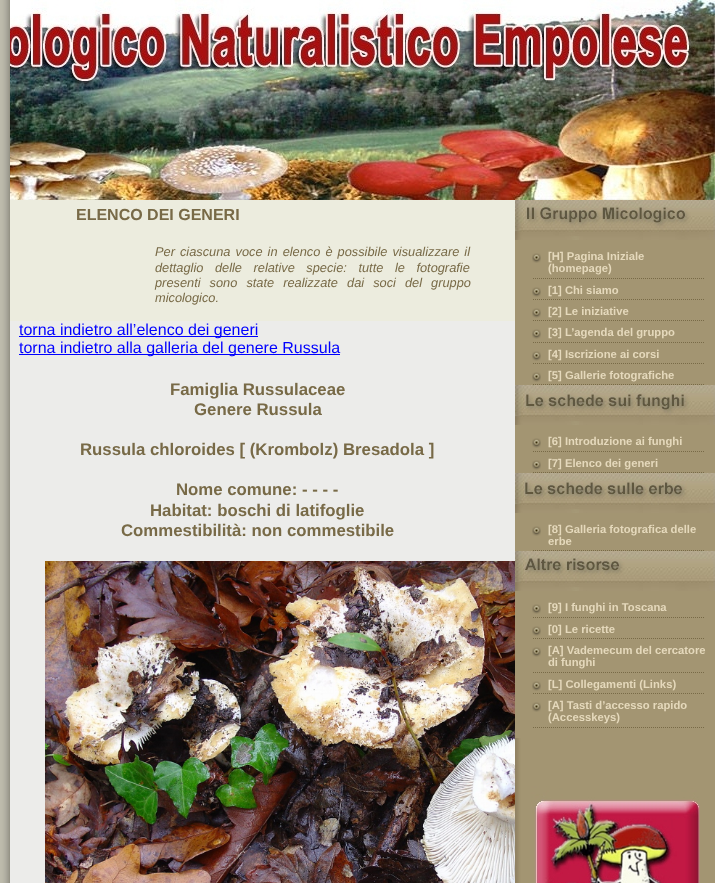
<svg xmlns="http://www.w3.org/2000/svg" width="715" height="883">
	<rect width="100%" height="100%" fill="#ECECEA" />
	<image x="0" y="0" width="10" height="883" href="assets/img1.png" />
	<image x="10" y="0" width="705" height="200" href="assets/img2.png" />
	<rect x="10" y="200" width="505" height="121" fill="#ECECDE" />
	<text x="76" y="220" font-family="Liberation Sans" font-size="16" font-weight="700" fill="#786A47">ELENCO DEI GENERI</text>
	<g font-family="Liberation Sans" font-size="12.8" font-style="italic" fill="#786A47">
		<text x="155" y="256" word-spacing="1.5">Per ciascuna voce in elenco è possibile visualizzare il</text>
		<text x="155" y="272" word-spacing="8">dettaglio delle relative specie: tutte le fotografie</text>
		<text x="155" y="287" word-spacing="5.5">presenti sono state realizzate dai soci del gruppo</text>
		<text x="155" y="302">micologico.</text>
	</g>
	<rect x="515" y="240" width="200" height="643" fill="#A39572" />
	<image x="515" y="200" width="200" height="40" href="assets/img3.png" />
	<image x="533" y="278" width="171" height="1" href="assets/img4.png" />
	<image x="532" y="253" width="9" height="10" href="assets/img5.png" />
	<g font-family="Liberation Sans" font-size="11.25" font-weight="700" fill="#E5D9BC">
		<text x="548" y="260">[H] Pagina Iniziale</text>
		<text x="548" y="272">(homepage)</text>
	</g>
	<image x="533" y="299" width="171" height="1" href="assets/img4.png" />
	<image x="532" y="287" width="9" height="10" href="assets/img5.png" />
	<text x="548" y="294" font-family="Liberation Sans" font-size="11.25" font-weight="700" fill="#E5D9BC">[1] Chi siamo</text>
	<image x="533" y="320" width="171" height="1" href="assets/img4.png" />
	<image x="532" y="308" width="9" height="10" href="assets/img5.png" />
	<text x="548" y="315" font-family="Liberation Sans" font-size="11.25" font-weight="700" fill="#E5D9BC">[2] Le iniziative</text>
	<image x="533" y="342" width="171" height="1" href="assets/img4.png" />
	<image x="532" y="329" width="9" height="10" href="assets/img5.png" />
	<text x="548" y="336" font-family="Liberation Sans" font-size="11.25" font-weight="700" fill="#E5D9BC">[3] L’agenda del gruppo</text>
	<image x="533" y="363" width="171" height="1" href="assets/img4.png" />
	<image x="532" y="351" width="9" height="10" href="assets/img5.png" />
	<text x="548" y="358" font-family="Liberation Sans" font-size="11.25" font-weight="700" fill="#E5D9BC">[4] Iscrizione ai corsi</text>
	<image x="533" y="384" width="171" height="1" href="assets/img4.png" />
	<image x="532" y="372" width="9" height="10" href="assets/img5.png" />
	<text x="548" y="379" font-family="Liberation Sans" font-size="11.25" font-weight="700" fill="#E5D9BC">[5] Gallerie fotografiche</text>
	<image x="515" y="385" width="200" height="40" href="assets/img6.png" />
	<image x="533" y="451" width="171" height="1" href="assets/img4.png" />
	<image x="532" y="438" width="9" height="10" href="assets/img5.png" />
	<text x="548" y="445" font-family="Liberation Sans" font-size="11.25" font-weight="700" fill="#E5D9BC">[6] Introduzione ai funghi</text>
	<image x="533" y="472" width="171" height="1" href="assets/img4.png" />
	<image x="532" y="460" width="9" height="10" href="assets/img5.png" />
	<text x="548" y="467" font-family="Liberation Sans" font-size="11.25" font-weight="700" fill="#E5D9BC">[7] Elenco dei generi</text>
	<image x="515" y="473" width="200" height="40" href="assets/img7.png" />
	<image x="533" y="550" width="171" height="1" href="assets/img4.png" />
	<image x="532" y="526" width="9" height="10" href="assets/img5.png" />
	<g font-family="Liberation Sans" font-size="11.25" font-weight="700" fill="#E5D9BC">
		<text x="548" y="533">[8] Galleria fotografica delle</text>
		<text x="548" y="545">erbe</text>
	</g>
	<image x="515" y="551" width="200" height="40" href="assets/img8.png" />
	<image x="533" y="617" width="171" height="1" href="assets/img4.png" />
	<image x="532" y="604" width="9" height="10" href="assets/img5.png" />
	<text x="548" y="611" font-family="Liberation Sans" font-size="11.25" font-weight="700" fill="#E5D9BC">[9] I funghi in Toscana</text>
	<image x="533" y="638" width="171" height="1" href="assets/img4.png" />
	<image x="532" y="626" width="9" height="10" href="assets/img5.png" />
	<text x="548" y="633" font-family="Liberation Sans" font-size="11.25" font-weight="700" fill="#E5D9BC">[0] Le ricette</text>
	<image x="533" y="672" width="171" height="1" href="assets/img4.png" />
	<image x="532" y="647" width="9" height="10" href="assets/img5.png" />
	<g font-family="Liberation Sans" font-size="11.25" font-weight="700" fill="#E5D9BC">
		<text x="548" y="654">[A] Vademecum del cercatore</text>
		<text x="548" y="666">di funghi</text>
	</g>
	<image x="533" y="693" width="171" height="1" href="assets/img4.png" />
	<image x="532" y="681" width="9" height="10" href="assets/img5.png" />
	<text x="548" y="688" font-family="Liberation Sans" font-size="11.25" font-weight="700" fill="#E5D9BC">[L] Collegamenti (Links)</text>
	<image x="533" y="727" width="171" height="1" href="assets/img4.png" />
	<image x="532" y="702" width="9" height="10" href="assets/img5.png" />
	<g font-family="Liberation Sans" font-size="11.25" font-weight="700" fill="#E5D9BC">
		<text x="548" y="709">[A] Tasti d’accesso rapido</text>
		<text x="548" y="721">(Accesskeys)</text>
	</g>
	<image x="515" y="738" width="185" height="145" href="assets/img9.png" />
	<rect x="19" y="336" width="239" height="1" fill="#0000FF" />
	<text x="19" y="335" font-family="Liberation Sans" font-size="16" fill="#0000FF">torna indietro all’elenco dei generi</text>
	<rect x="19" y="354" width="321" height="1" fill="#0000FF" />
	<text x="19" y="353" font-family="Liberation Sans" font-size="16" fill="#0000FF">torna indietro alla galleria del genere Russula</text>
	<g font-family="Liberation Sans" font-size="16.8" font-weight="700" fill="#786A47">
		<text x="170" y="395">Famiglia Russulaceae</text>
		<text x="194" y="415">Genere Russula</text>
		<text x="80" y="455">Russula chloroides [ (Krombolz) Bresadola ]</text>
		<text x="176" y="495">Nome comune: - - - -</text>
		<text x="150" y="516">Habitat: boschi di latifoglie</text>
		<text x="121" y="536">Commestibilità: non commestibile</text>
	</g>
	<image x="45" y="561" width="470" height="322" href="assets/img10.png" />
</svg>
